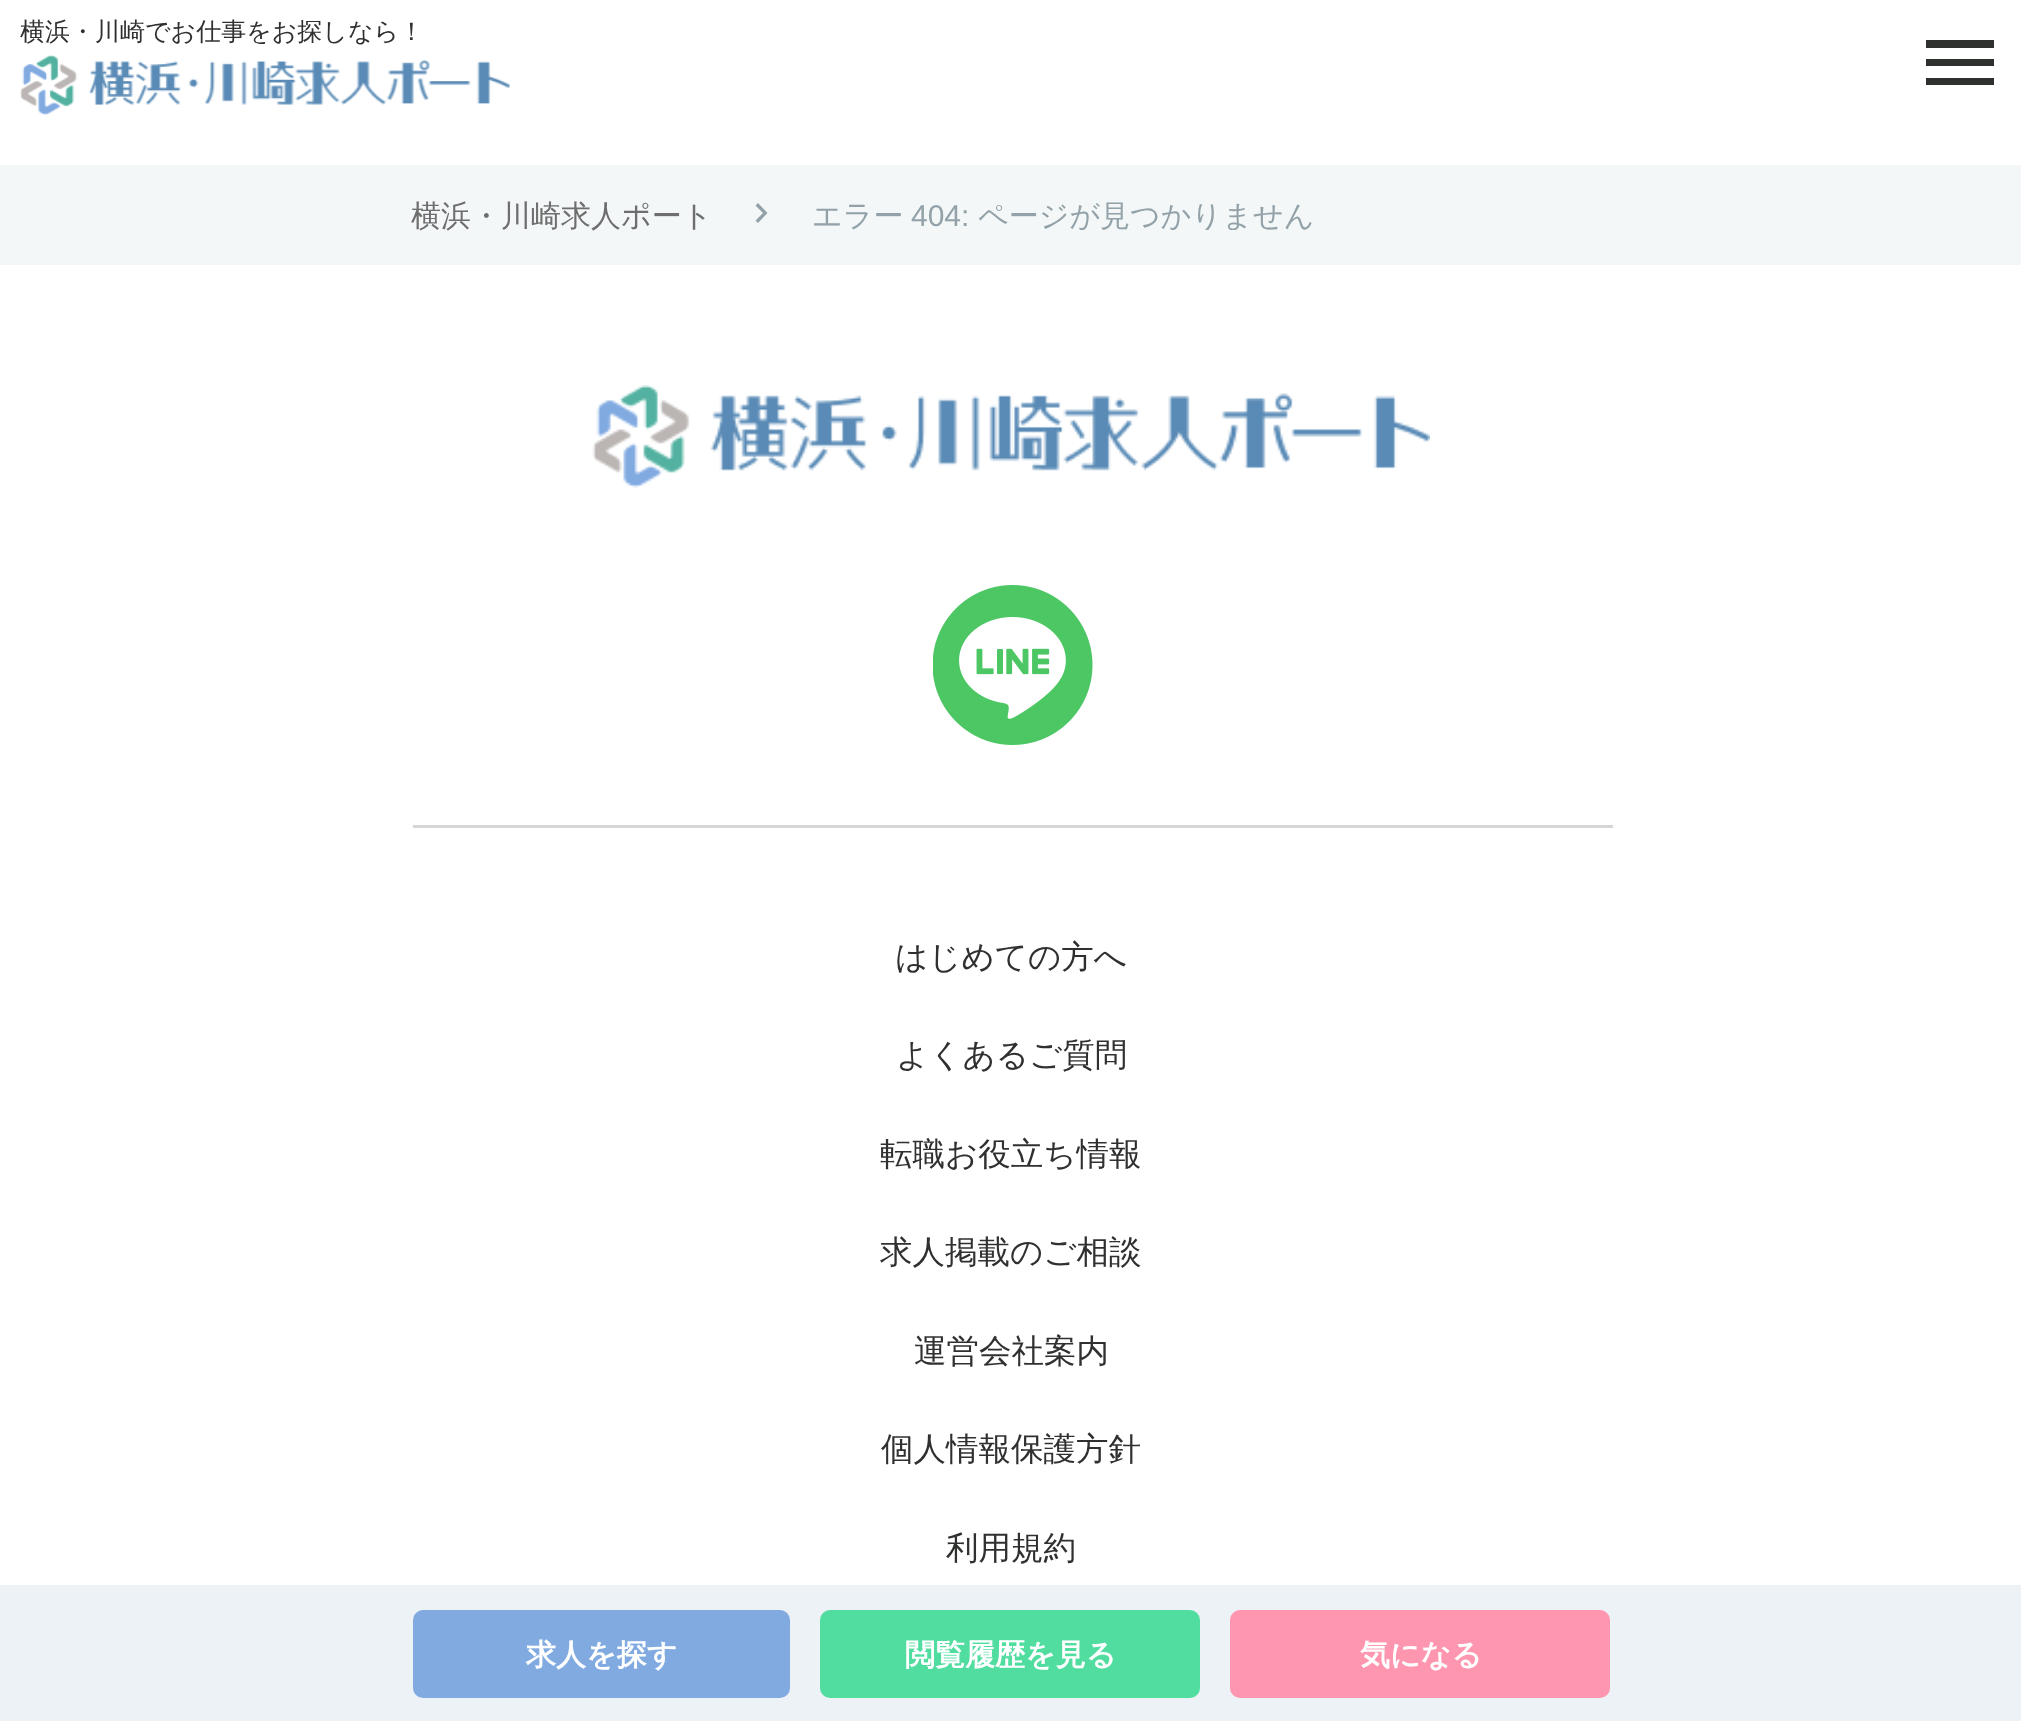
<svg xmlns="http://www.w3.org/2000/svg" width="2021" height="1721">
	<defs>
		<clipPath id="clip1"><rect x="813" y="198" width="502" height="32" /></clipPath>
	</defs>
	<rect width="100%" height="100%" fill="#FFFFFF" />
	<text x="20" y="40" font-family="WenQuanYi Zen Hei" font-size="25" font-weight="500" fill="#2F312F">横浜・川崎でお仕事をお探しなら！</text>
	<image x="20" y="55" width="490" height="60" href="assets/img1.png" />
	<path d="M1926 85V78H1994V85ZM1926 66V59H1994V66ZM1926 48V40H1994V48Z" fill="#2F312F" />
	<rect x="0" y="165" width="2021" height="100" fill="#F3F7F7" />
	<text x="411" y="226" font-family="WenQuanYi Zen Hei" font-size="30" font-weight="500" fill="#6E6E6F">横浜・川崎求人ポート</text>
	<path d="M763 213L755.5 205.5L758 203L767.5 213L758 223L755.5 220.5Z" fill="#93A2A9" />
	<text x="812" y="226" font-family="WenQuanYi Zen Hei" font-size="30" font-weight="500" fill="#93A2A9">エラー</text>
	<text x="911" y="226" font-family="Liberation Sans" font-size="30" fill="#93A2A9">404:</text>
	<g clip-path="url(#clip1)">
		<text x="978" y="226" font-family="WenQuanYi Zen Hei" font-size="30" font-weight="500" fill="#93A2A9">ページが見つかりません</text>
	</g>
	<rect x="413" y="825" width="1200" height="3" fill="#D6D6D6" />
	<image x="592" y="385" width="838" height="103" href="assets/img2.png" />
	<image x="933" y="585" width="160" height="160" href="assets/img3.png" />
	<g font-family="WenQuanYi Zen Hei" font-size="32.5" font-weight="500" fill="#2F312F">
		<text x="895" y="968">はじめての方へ</text>
		<text x="896" y="1066">よくあるご質問</text>
		<text x="880" y="1165">転職お役立ち情報</text>
		<text x="880" y="1263">求人掲載のご相談</text>
		<text x="914" y="1362">運営会社案内</text>
		<text x="881" y="1460">個人情報保護方針</text>
		<text x="946" y="1559">利用規約</text>
	</g>
	<rect x="0" y="1585" width="2021" height="136" fill="#EDF2F7" />
	<rect x="413" y="1610" width="377" height="88" rx="10" fill="#81AAE1" />
	<text x="526" y="1665" font-family="WenQuanYi Zen Hei" font-size="30" font-weight="700" fill="#FFFFFF">求人を探す</text>
	<rect x="820" y="1610" width="380" height="88" rx="10" fill="#51DDA0" />
	<text x="905" y="1665" font-family="WenQuanYi Zen Hei" font-size="30" font-weight="700" fill="#FFFFFF">閲覧履歴を見る</text>
	<rect x="1230" y="1610" width="380" height="88" rx="10" fill="#FF96B0" />
	<text x="1360" y="1665" font-family="WenQuanYi Zen Hei" font-size="30" font-weight="700" fill="#FFFFFF">気になる</text>
</svg>
